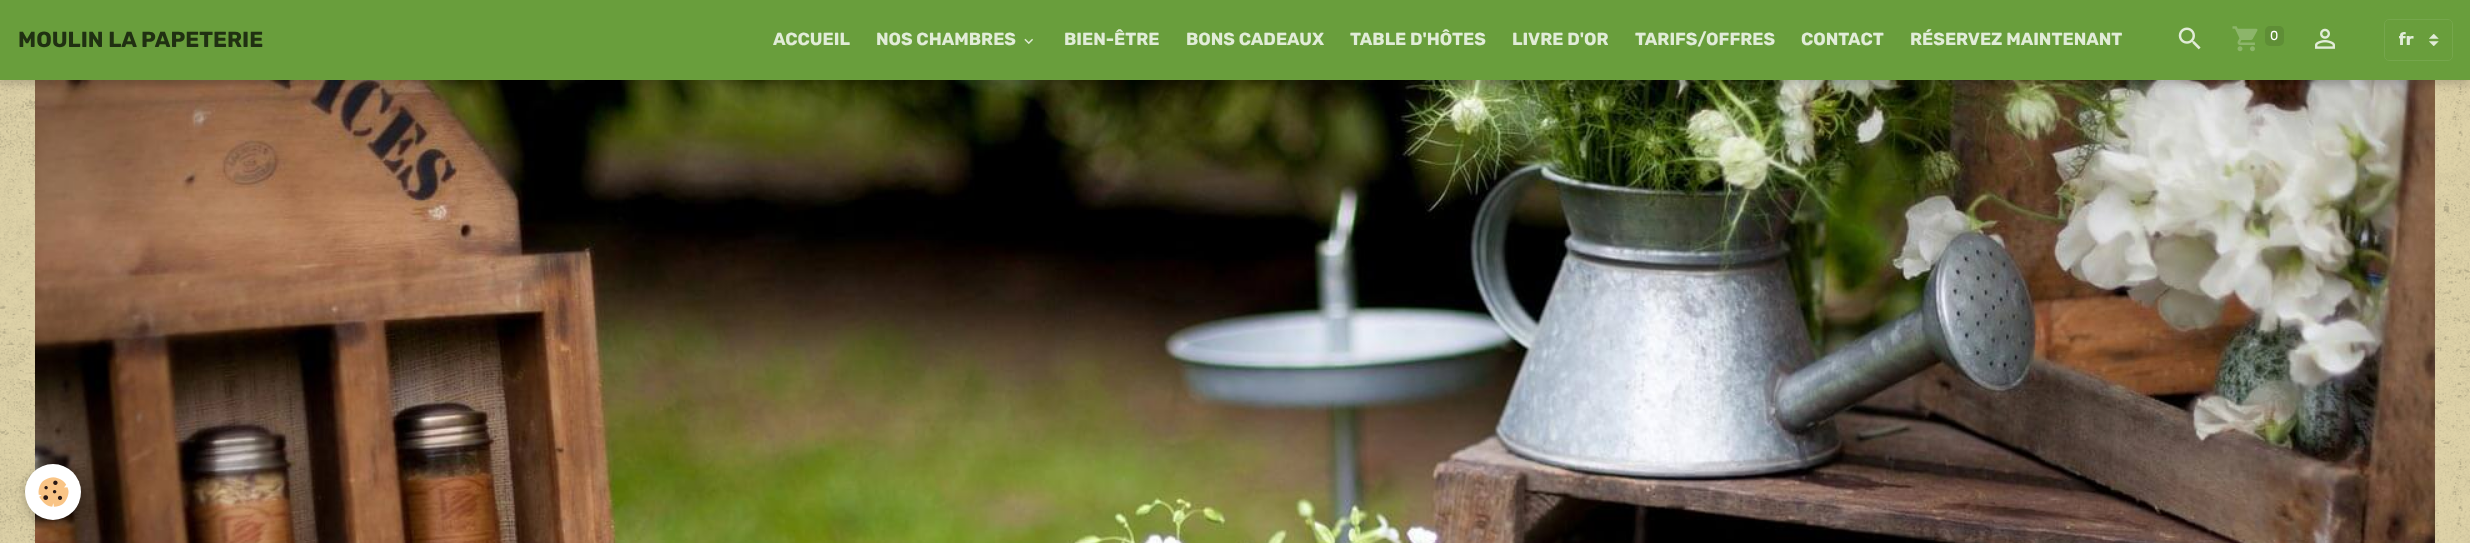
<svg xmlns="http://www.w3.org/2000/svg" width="2470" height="543">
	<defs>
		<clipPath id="clip1"><rect x="2399" y="26" width="22" height="27" /></clipPath>
	</defs>
	<rect width="100%" height="100%" fill="#DED2A8" />
	<image x="0" y="80" width="2470" height="463" href="assets/img1.png" />
	<image x="35" y="80" width="2400" height="463" href="assets/img7.png" />
	<rect x="0" y="4" width="2470" height="80" fill="#000000" fill-opacity="0.2" filter="blur(4.5px)" />
	<rect x="0" y="0" width="2470" height="80" fill="#699E3C" />
	<text x="18" y="47" font-family="Rubik" font-size="21.9" font-weight="700" fill="#203012">MOULIN LA PAPETERIE</text>
	<g font-family="Rubik" font-size="17.5" font-weight="700" fill="#E1ECD8">
		<text x="773" y="45">ACCUEIL</text>
		<text x="876" y="45">NOS CHAMBRES</text>
	</g>
	<image x="1024" y="38" width="9" height="6" href="assets/img2.png" />
	<g font-family="Rubik" font-size="17.5" font-weight="700" fill="#E1ECD8">
		<text x="1064" y="45">BIEN-ÊTRE</text>
		<text x="1186" y="45">BONS CADEAUX</text>
		<text x="1350" y="45">TABLE D'HÔTES</text>
		<text x="1512" y="45">LIVRE D'OR</text>
		<text x="1635" y="45">TARIFS/OFFRES</text>
		<text x="1801" y="45">CONTACT</text>
		<text x="1910" y="45">RÉSERVEZ MAINTENANT</text>
	</g>
	<image x="2178" y="27" width="23" height="23" href="assets/img3.png" />
	<image x="2232" y="26" width="26" height="26" href="assets/img4.png" />
	<rect x="2265" y="26" width="19" height="20" rx="5" fill="#5F8E36" />
	<text x="2270" y="40" font-family="Rubik" font-size="13" fill="#FFFFFF">0</text>
	<image x="2315" y="28" width="20" height="21" href="assets/img5.png" />
	<image x="2429" y="34" width="10" height="12" href="assets/img6.png" />
	<rect x="2384.5" y="19.5" width="68" height="41" rx="4.5" fill="none" stroke="#75A64C" />
	<g clip-path="url(#clip1)">
		<text x="2398" y="45" font-family="Rubik" font-size="17.5" font-weight="700" fill="#E1ECD8">fr</text>
	</g>
	<rect x="25" y="468" width="56" height="56" rx="28" fill="#000000" fill-opacity="0.24" filter="blur(6px)" />
	<circle cx="53" cy="492" r="28" fill="#FFFFFF" />
	<image x="38" y="477" width="31" height="30" href="assets/img8.png" />
</svg>
